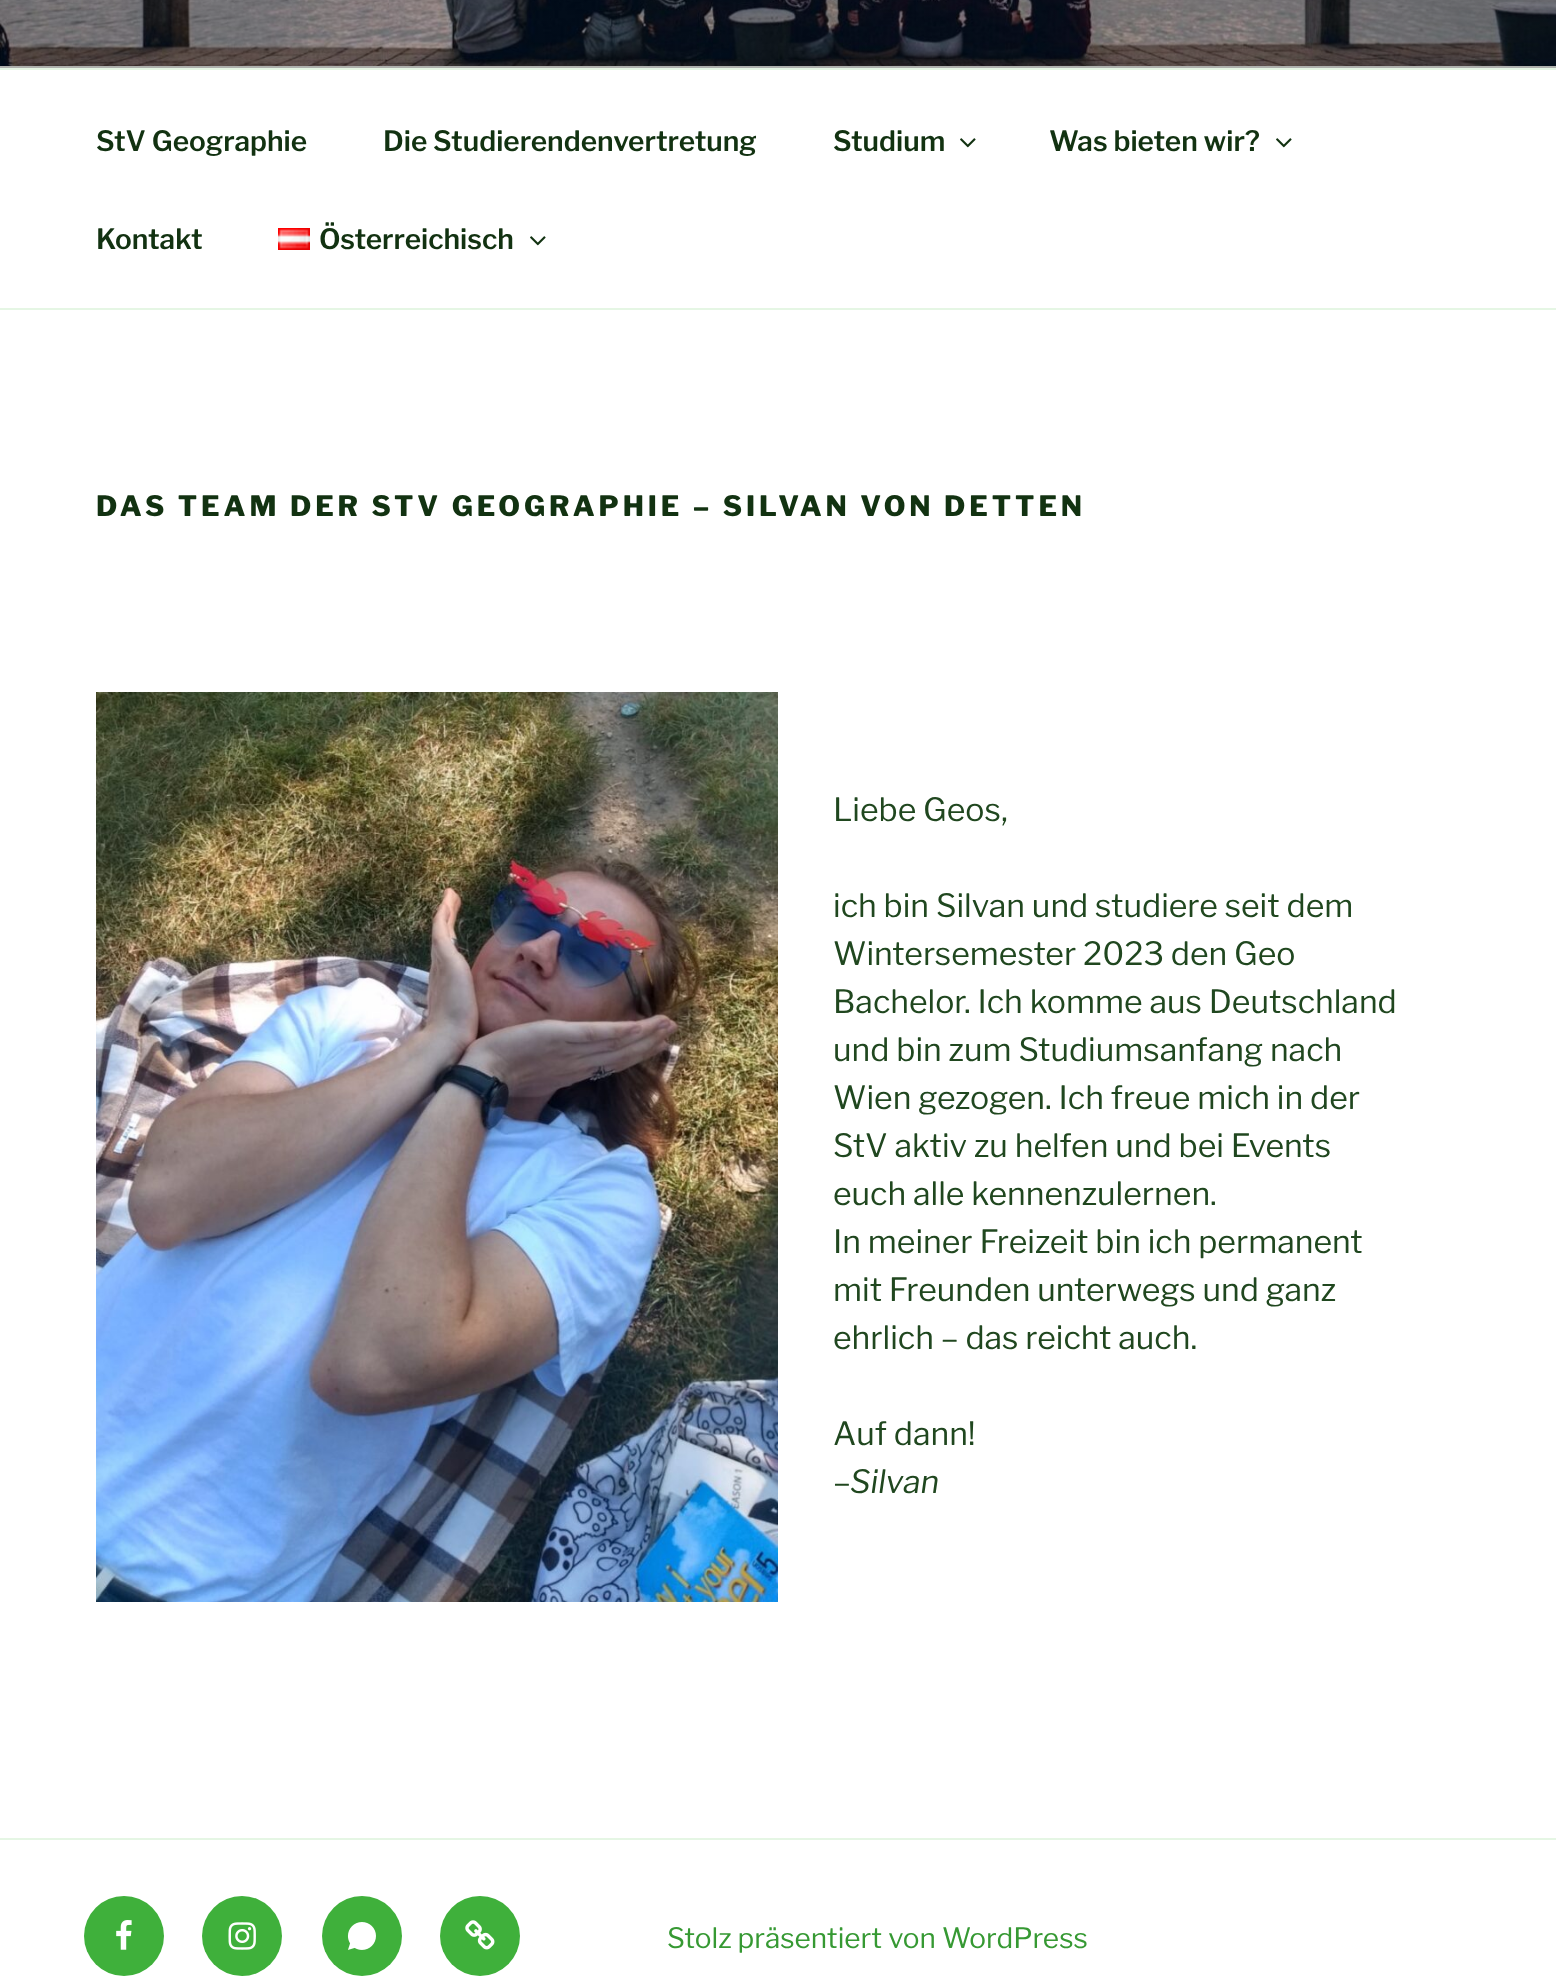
<svg xmlns="http://www.w3.org/2000/svg" width="1556" height="1985">
	<defs>
		<linearGradient id="g1" gradientUnits="userSpaceOnUse" x1="778" y1="-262" x2="778" y2="68"><stop offset="0" stop-color="#000000" stop-opacity="0" /><stop offset="0.75" stop-color="#000000" stop-opacity="0.3" /><stop offset="1" stop-color="#000000" stop-opacity="0.3" /></linearGradient>
	</defs>
	<rect width="100%" height="100%" fill="#FFFFFF" />
	<rect x="0" y="66" width="1556" height="2" fill="#F8FCF7" />
	<image x="0" y="0" width="1556" height="66" href="assets/img1.png" />
	<rect x="0" y="0" width="1556" height="68" fill="url(#g1)" />
	<rect x="0" y="68" width="1556" height="2" fill="#E5F6E4" />
	<rect x="0" y="308" width="1556" height="2" fill="#E5F6E4" />
	<g font-family="'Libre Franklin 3'" font-size="28" font-weight="100" fill="#123211">
		<text x="96" y="151">StV Geographie</text>
		<text x="383" y="151">Die Studierendenvertretung</text>
		<text x="833" y="151">Studium</text>
	</g>
	<image x="960" y="138" width="16" height="10" href="assets/img2.png" />
	<text x="1049" y="151" font-family="'Libre Franklin 3'" font-size="28" font-weight="100" fill="#123211">Was bieten wir?</text>
	<image x="1276" y="138" width="16" height="10" href="assets/img2.png" />
	<text x="96" y="249" font-family="'Libre Franklin 3'" font-size="28" font-weight="100" fill="#123211">Kontakt</text>
	<image x="278" y="228" width="32" height="22" href="assets/img3.png" />
	<text x="319" y="249" font-family="'Libre Franklin 3'" font-size="28" font-weight="100" fill="#123211">Österreichisch</text>
	<image x="530" y="236" width="16" height="10" href="assets/img2.png" />
	<text x="96" y="516" font-family="'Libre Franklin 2'" font-size="28" font-weight="100" letter-spacing="3.9" fill="#123211">DAS TEAM DER STV GEOGRAPHIE – SILVAN VON DETTEN</text>
	<image x="96" y="692" width="682" height="910" href="assets/img4.png" />
	<g font-family="Libre Franklin" font-size="32" font-weight="100" fill="#20471F">
		<text x="833" y="821">Liebe Geos,</text>
		<text x="833" y="917">ich bin Silvan und studiere seit dem</text>
		<text x="833" y="965">Wintersemester 2023 den Geo</text>
		<text x="833" y="1013">Bachelor. Ich komme aus Deutschland</text>
		<text x="833" y="1061">und bin zum Studiumsanfang nach</text>
		<text x="833" y="1109">Wien gezogen. Ich freue mich in der</text>
		<text x="833" y="1157">StV aktiv zu helfen und bei Events</text>
		<text x="833" y="1205">euch alle kennenzulernen.</text>
		<text x="833" y="1253">In meiner Freizeit bin ich permanent</text>
		<text x="833" y="1301">mit Freunden unterwegs und ganz</text>
		<text x="833" y="1349">ehrlich – das reicht auch.</text>
		<text x="833" y="1445">Auf dann!</text>
		<text x="833" y="1493">–</text>
	</g>
	<text x="850" y="1493" font-family="Libre Franklin" font-size="32" font-weight="100" font-style="italic" fill="#20471F">Silvan</text>
	<rect x="0" y="1838" width="1556" height="2" fill="#E5F6E4" />
	<circle cx="124" cy="1936" r="40" fill="#3FB03B" />
	<image x="116" y="1920" width="16" height="30" href="assets/img5.png" />
	<circle cx="242" cy="1936" r="40" fill="#3FB03B" />
	<image x="228" y="1922" width="28" height="28" href="assets/img6.png" />
	<circle cx="362" cy="1936" r="40" fill="#3FB03B" />
	<image x="347" y="1922" width="29" height="28" href="assets/img7.png" />
	<circle cx="480" cy="1936" r="40" fill="#3FB03B" />
	<image x="465" y="1920" width="30" height="30" href="assets/img8.png" />
	<text x="667" y="1948" font-family="Libre Franklin" font-size="28" font-weight="100" fill="#369933">Stolz präsentiert von WordPress</text>
</svg>
